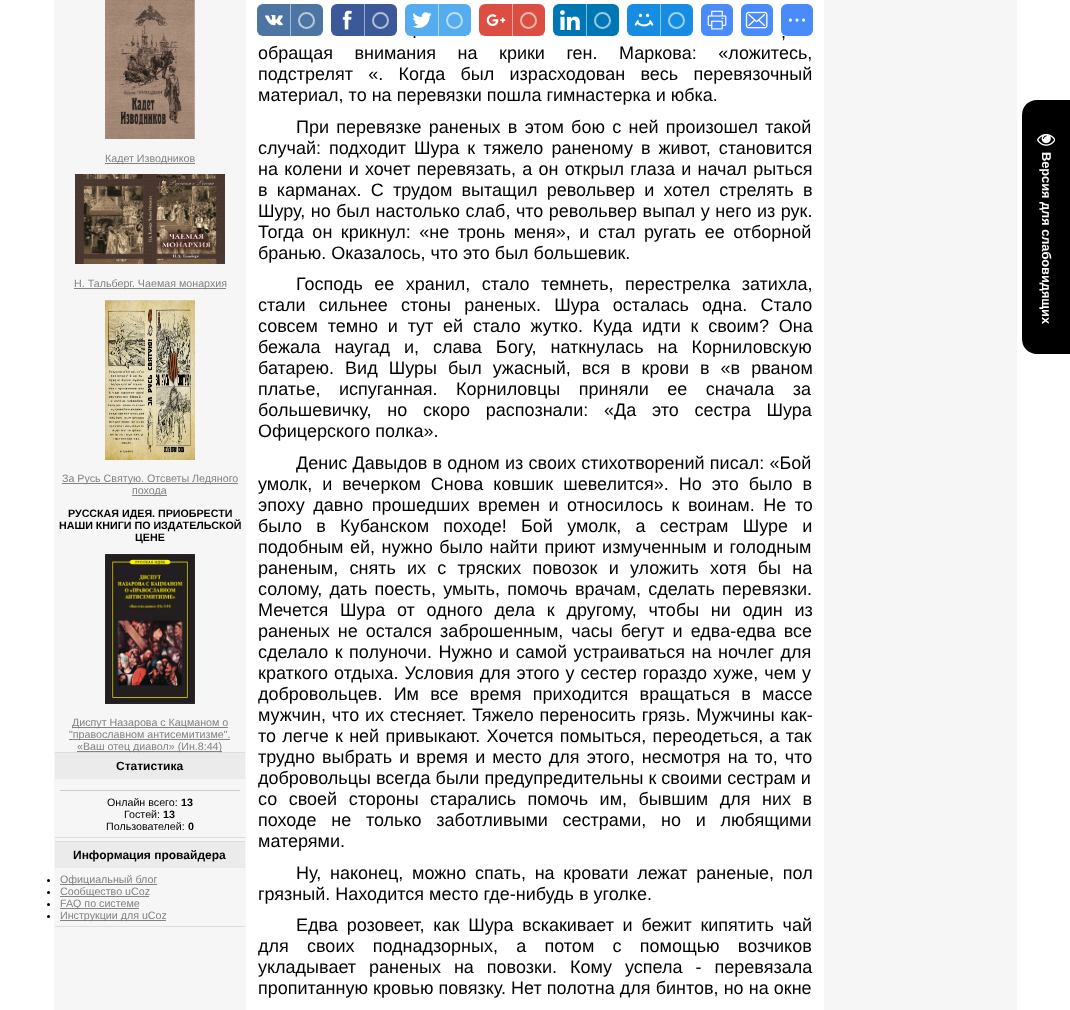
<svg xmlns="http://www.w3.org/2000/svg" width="1070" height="1010">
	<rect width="100%" height="100%" fill="#FFFFFF" />
	<rect x="257" y="4" width="66" height="32" rx="6" fill="#4D75A3" />
	<image x="265" y="15" width="18" height="11" href="assets/img1.png" />
	<rect x="290" y="4" width="1" height="32" fill="#A6BAD1" />
	<circle cx="306.5" cy="20.5" r="7.5" fill="none" stroke="#B8C8DA" stroke-width="2" />
	<rect x="331" y="4" width="66" height="32" rx="6" fill="#3B5998" />
	<image x="342" y="10" width="10" height="20" href="assets/img2.png" />
	<rect x="364" y="4" width="1" height="32" fill="#9DACCC" />
	<circle cx="380.5" cy="20.5" r="7.5" fill="none" stroke="#B1BDD6" stroke-width="2" />
	<rect x="405" y="4" width="66" height="32" rx="6" fill="#55ACEE" />
	<image x="412" y="12" width="20" height="16" href="assets/img3.png" />
	<rect x="438" y="4" width="1" height="32" fill="#AAD6F7" />
	<circle cx="454.5" cy="20.5" r="7.5" fill="none" stroke="#BBDEF8" stroke-width="2" />
	<rect x="479" y="4" width="66" height="32" rx="6" fill="#DC4E41" />
	<image x="486" y="14" width="20" height="12" href="assets/img4.png" />
	<rect x="512" y="4" width="1" height="32" fill="#EEA7A0" />
	<circle cx="528.5" cy="20.5" r="7.5" fill="none" stroke="#F1B8B3" stroke-width="2" />
	<rect x="553" y="4" width="66" height="32" rx="6" fill="#0077B5" />
	<image x="560" y="10" width="20" height="20" href="assets/img5.png" />
	<rect x="586" y="4" width="1" height="32" fill="#80BBDA" />
	<circle cx="602.5" cy="20.5" r="7.5" fill="none" stroke="#99C9E1" stroke-width="2" />
	<rect x="627" y="4" width="66" height="32" rx="6" fill="#168DE2" />
	<image x="634" y="13" width="20" height="14" href="assets/img6.png" />
	<rect x="660" y="4" width="1" height="32" fill="#8BC6F1" />
	<circle cx="676.5" cy="20.5" r="7.5" fill="none" stroke="#A2D1F3" stroke-width="2" />
	<rect x="701" y="4" width="32" height="32" rx="6" fill="#498BFA" />
	<image x="707" y="10" width="20" height="20" href="assets/img7.png" />
	<rect x="741" y="4" width="32" height="32" rx="6" fill="#498BFA" />
	<image x="745" y="11" width="23" height="18" href="assets/img8.png" />
	<rect x="781" y="4" width="32" height="32" rx="6" fill="#498BFA" />
	<image x="788" y="18" width="18" height="4" href="assets/img9.png" />
	<rect x="54" y="0" width="192" height="1010" fill="#F6F6F6" />
	<image x="105" y="0" width="90" height="139" href="assets/img10.png" />
	<rect x="105" y="163" width="90" height="1" fill="#838383" />
	<text x="105" y="162" font-family="Liberation Sans" font-size="10.7" fill="#838383">Кадет Изводников</text>
	<image x="75" y="174" width="150" height="90" href="assets/img11.png" />
	<rect x="74" y="288" width="152" height="1" fill="#838383" />
	<text x="74" y="287" font-family="Liberation Sans" font-size="10.7" fill="#838383">Н. Тальберг. Чаемая монархия</text>
	<image x="105" y="300" width="90" height="160" href="assets/img12.png" />
	<rect x="62" y="483" width="176" height="1" fill="#838383" />
	<text x="62" y="482" font-family="Liberation Sans" font-size="10.7" fill="#838383">За Русь Святую. Отсветы Ледяного</text>
	<rect x="132" y="495" width="35" height="1" fill="#838383" />
	<text x="132" y="494" font-family="Liberation Sans" font-size="10.7" fill="#838383">похода</text>
	<g font-family="Liberation Sans" font-size="10.7" font-weight="700" fill="#000000">
		<text x="68" y="517">РУССКАЯ ИДЕЯ. ПРИОБРЕСТИ</text>
		<text x="59" y="529">НАШИ КНИГИ ПО ИЗДАТЕЛЬСКОЙ</text>
		<text x="135" y="541">ЦЕНЕ</text>
	</g>
	<image x="105" y="554" width="90" height="150" href="assets/img13.png" />
	<rect x="72" y="727" width="156" height="1" fill="#838383" />
	<text x="72" y="726" font-family="Liberation Sans" font-size="10.7" fill="#838383">Диспут Назарова с Кацманом о</text>
	<rect x="69" y="739" width="161" height="1" fill="#838383" />
	<text x="69" y="738" font-family="Liberation Sans" font-size="10.7" fill="#838383">"православном антисемитизме".</text>
	<rect x="77" y="751" width="145" height="1" fill="#838383" />
	<rect x="55" y="752" width="190" height="1" fill="#DDDDDD" />
	<text x="77" y="750" font-family="Liberation Sans" font-size="10.7" fill="#838383">«Ваш отец диавол» (Ин.8:44)</text>
	<rect x="55" y="837" width="190" height="1" fill="#DDDDDD" />
	<rect x="55" y="753" width="190" height="26" fill="#EBEBEB" />
	<text x="116" y="770" font-family="Liberation Sans" font-size="12" font-weight="700" fill="#000000">Статистика</text>
	<rect x="60" y="790" width="180" height="1" fill="#CCCCCC" />
	<text x="107" y="806" font-family="Liberation Sans" font-size="10.7" fill="#000000">Онлайн всего:</text>
	<text x="181" y="806" font-family="Liberation Sans" font-size="10.7" font-weight="700" fill="#000000">13</text>
	<text x="124" y="818" font-family="Liberation Sans" font-size="10.7" fill="#000000">Гостей:</text>
	<text x="163" y="818" font-family="Liberation Sans" font-size="10.7" font-weight="700" fill="#000000">13</text>
	<text x="106" y="830" font-family="Liberation Sans" font-size="10.7" fill="#000000">Пользователей:</text>
	<text x="188" y="830" font-family="Liberation Sans" font-size="10.7" font-weight="700" fill="#000000">0</text>
	<rect x="55" y="841" width="190" height="1" fill="#DDDDDD" />
	<rect x="55" y="926" width="190" height="1" fill="#DDDDDD" />
	<rect x="55" y="842" width="190" height="26" fill="#EBEBEB" />
	<text x="73" y="859" font-family="Liberation Sans" font-size="12" font-weight="700" fill="#000000">Информация провайдера</text>
	<circle cx="48.5" cy="880.5" r="1.5" fill="#000000" />
	<rect x="60" y="884" width="97" height="1" fill="#838383" />
	<text x="60" y="883" font-family="Liberation Sans" font-size="10.7" fill="#838383">Официальный блог</text>
	<circle cx="48.5" cy="892.5" r="1.5" fill="#000000" />
	<rect x="60" y="896" width="89" height="1" fill="#838383" />
	<text x="60" y="895" font-family="Liberation Sans" font-size="10.7" fill="#838383">Сообщество uCoz</text>
	<circle cx="48.5" cy="904.5" r="1.5" fill="#000000" />
	<rect x="60" y="908" width="79" height="1" fill="#838383" />
	<text x="60" y="907" font-family="Liberation Sans" font-size="10.7" fill="#838383">FAQ по системе</text>
	<circle cx="48.5" cy="916.5" r="1.5" fill="#000000" />
	<rect x="60" y="920" width="106" height="1" fill="#838383" />
	<text x="60" y="919" font-family="Liberation Sans" font-size="10.7" fill="#838383">Инструкции для uCoz</text>
	<g font-family="Liberation Sans" font-size="18" fill="#000000">
		<text x="412" y="38" word-spacing="1">.</text>
		<text x="781" y="38" word-spacing="1">,</text>
		<text x="258" y="59" word-spacing="16.5">обращая внимания на крики ген. Маркова: «ложитесь,</text>
		<text x="258" y="80" word-spacing="10.25">подстрелят «. Когда был израсходован весь перевязочный</text>
		<text x="258" y="101">материал, то на перевязки пошла гимнастерка и юбка.</text>
		<text x="296" y="133" word-spacing="2.25">При перевязке раненых в этом бою с ней произошел такой</text>
		<text x="258" y="154" word-spacing="3">случай: подходит Шура к тяжело раненому в живот, становится</text>
		<text x="258" y="175" word-spacing="1.25">на колени и хочет перевязать, а он открыл глаза и начал рыться</text>
		<text x="258" y="196" word-spacing="4.25">в карманах. С трудом вытащил револьвер и хотел стрелять в</text>
		<text x="258" y="217" word-spacing="0.5">Шуру, но был настолько слаб, что револьвер выпал у него из рук.</text>
		<text x="258" y="238" word-spacing="3.5">Тогда он крикнул: «не тронь меня», и стал ругать ее отборной</text>
		<text x="258" y="259">бранью. Оказалось, что это был большевик.</text>
		<text x="296" y="290" word-spacing="6.5">Господь ее хранил, стало темнеть, перестрелка затихла,</text>
		<text x="258" y="311" word-spacing="8.25">стали сильнее стоны раненых. Шура осталась одна. Стало</text>
		<text x="258" y="332" word-spacing="4.75">совсем темно и тут ей стало жутко. Куда идти к своим? Она</text>
		<text x="258" y="353" word-spacing="9">бежала наугад и, слава Богу, наткнулась на Корниловскую</text>
		<text x="258" y="374" word-spacing="6">батарею. Вид Шуры был ужасный, вся в крови в «в рваном</text>
		<text x="258" y="395" word-spacing="13.5">платье, испуганная. Корниловцы приняли ее сначала за</text>
		<text x="258" y="416" word-spacing="10.75">большевичку, но скоро распознали: «Да это сестра Шура</text>
		<text x="258" y="437">Офицерского полка».</text>
		<text x="296" y="469" word-spacing="0.25">Денис Давыдов в одном из своих стихотворений писал: «Бой</text>
		<text x="258" y="490" word-spacing="5">умолк, и вечерком Снова ковшик шевелится». Но это было в</text>
		<text x="258" y="511" word-spacing="3.5">эпоху давно прошедших времен и относилось к воинам. Не то</text>
		<text x="258" y="532" word-spacing="9.25">было в Кубанском походе! Бой умолк, а сестрам Шуре и</text>
		<text x="258" y="553" word-spacing="1.5">подобным ей, нужно было найти приют измученным и голодным</text>
		<text x="258" y="574" word-spacing="6.25">раненым, снять их с тряских повозок и уложить хотя бы на</text>
		<text x="258" y="595" word-spacing="2.25">солому, дать поесть, умыть, помочь врачам, сделать перевязки.</text>
		<text x="258" y="616" word-spacing="6.75">Мечется Шура от одного дела к другому, чтобы ни один из</text>
		<text x="258" y="637" word-spacing="3">раненых не остался заброшенным, часы бегут и едва-едва все</text>
		<text x="258" y="658" word-spacing="1.5">сделало к полуночи. Нужно и самой устраиваться на ночлег для</text>
		<text x="258" y="679" word-spacing="1">краткого отдыха. Условия для этого у сестер гораздо хуже, чем у</text>
		<text x="258" y="700" word-spacing="6.25">добровольцев. Им все время приходится вращаться в массе</text>
		<text x="258" y="721" word-spacing="0.75">мужчин, что их стесняет. Тяжело переносить грязь. Мужчины как-</text>
		<text x="258" y="742" word-spacing="1.25">то легче к ней привыкают. Хочется помыться, переодеться, а так</text>
		<text x="258" y="763" word-spacing="2.1">трудно выбрать и время и место для этого, несмотря на то, что</text>
		<text x="258" y="784">добровольцы всегда были предупредительны к своими сестрам и</text>
		<text x="258" y="805" word-spacing="6.5">со своей стороны старались помочь им, бывшим для них в</text>
		<text x="258" y="826" word-spacing="9.75">походе не только заботливыми сестрами, но и любящими</text>
		<text x="258" y="847">матерями.</text>
		<text x="296" y="879" word-spacing="3.75">Ну, наконец, можно спать, на кровати лежат раненые, пол</text>
		<text x="258" y="900">грязный. Находится место где-нибудь в уголке.</text>
		<text x="296" y="931" word-spacing="3.75">Едва розовеет, как Шура вскакивает и бежит кипятить чай</text>
		<text x="258" y="952" word-spacing="13.25">для своих поднадзорных, а потом с помощью возчиков</text>
		<text x="258" y="973" word-spacing="8">укладывает раненых на повозки. Кому успела - перевязала</text>
		<text x="258" y="994" word-spacing="0.1">пропитанную кровью повязку. Нет полотна для бинтов, но на окне</text>
	</g>
	<rect x="824" y="0" width="193" height="1010" fill="#F6F6F6" />
	<path d="M1037 100H1070V354H1037C1028.5 354 1022 347.5 1022 339V115C1022 106.5 1028.5 100 1037 100Z" fill="#000000" />
	<image x="1037" y="133" width="18" height="13" href="assets/img14.png" />
	<text x="1042" y="152" transform="rotate(90 1042 152)" font-family="Liberation Sans" font-size="12.75" font-weight="700" fill="#FFFFFF">Версия для слабовидящих</text>
</svg>
